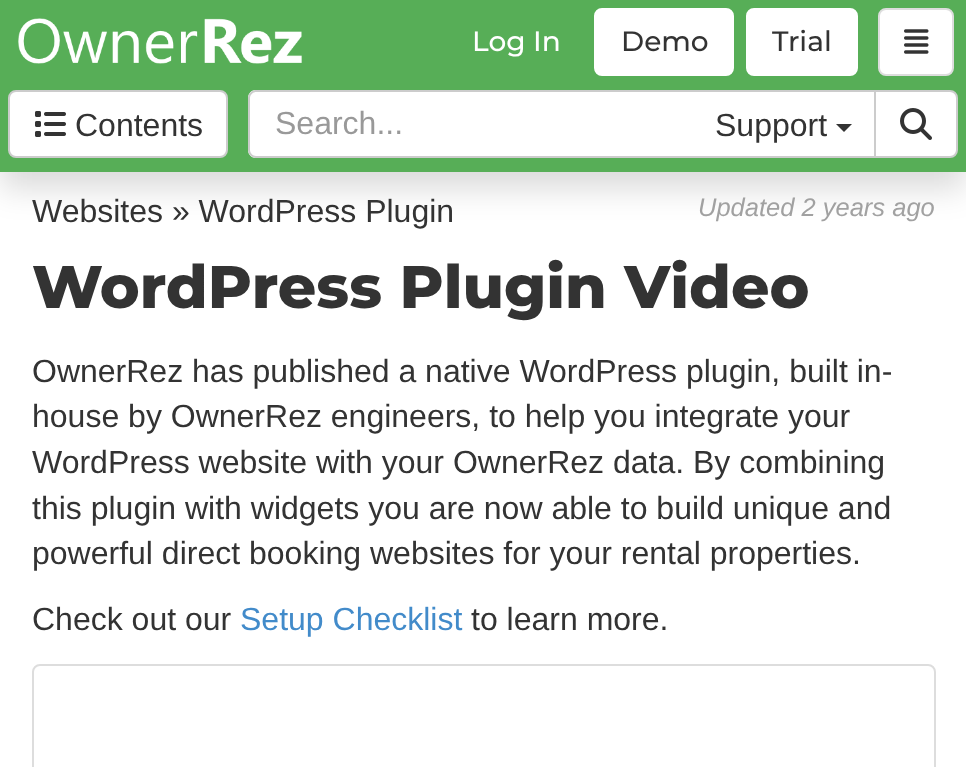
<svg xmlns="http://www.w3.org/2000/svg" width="966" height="767">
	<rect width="100%" height="100%" fill="#FFFFFF" />
	<rect x="0" y="16" width="966" height="172" fill="#000000" fill-opacity="0.15" filter="blur(16px)" />
	<rect x="0" y="0" width="966" height="172" fill="#57AE57" />
	<image x="18" y="18" width="284" height="46" href="assets/img1.png" />
	<rect x="879" y="9" width="74" height="66" rx="7" fill="#FFFFFF" stroke="#DDDDDD" stroke-width="2" />
	<image x="904" y="29" width="25" height="25" href="assets/img2.png" />
	<text x="472" y="51" font-family="Montserrat" font-size="28" font-weight="500" fill="#FFFFFF">Log In</text>
	<rect x="595" y="9" width="138" height="66" rx="7" fill="#FFFFFF" stroke="#FFFFFF" stroke-width="2" />
	<text x="621" y="51" font-family="Montserrat" font-size="28" font-weight="500" fill="#333333">Demo</text>
	<rect x="747" y="9" width="110" height="66" rx="7" fill="#FFFFFF" stroke="#FFFFFF" stroke-width="2" />
	<text x="772" y="51" font-family="Montserrat" font-size="28" font-weight="500" fill="#333333">Trial</text>
	<rect x="9" y="91" width="218" height="66" rx="7" fill="#FFFFFF" stroke="#CCCCCC" stroke-width="2" />
	<image x="35" y="111" width="31" height="26" href="assets/img3.png" />
	<text x="75" y="136" font-family="Liberation Sans" font-size="32" fill="#333333">Contents</text>
	<path d="M256 90H692V158H256C251.5 158 248 154.5 248 150V98C248 93.5 251.5 90 256 90Z" fill="#FFFFFF" />
	<path d="M256 90H692V158H256C252 158 248 154 248 150V98C248 94 252 90 256 90ZM256 92H692V156H256C253 156 250 153 250 150V98C250 95 253 92 256 92Z" fill="#CCCCCC" fill-rule="evenodd" />
	<text x="275" y="134" font-family="Liberation Sans" font-size="32" fill="#999999">Search...</text>
	<rect x="692" y="92" width="182" height="64" fill="#FFFFFF" />
	<rect x="692" y="90" width="184" height="2" fill="#CCCCCC" />
	<rect x="692" y="156" width="184" height="2" fill="#CCCCCC" />
	<text x="715" y="136" font-family="Liberation Sans" font-size="32" fill="#333333">Support</text>
	<path d="M836 124H852L844 132Z" fill="#333333" />
	<path d="M875 91H950C954 91 957 94 957 98V150C957 154 954 157 950 157H875Z" fill="#FFFFFF" stroke="#CCCCCC" stroke-width="2" />
	<image x="900" y="108" width="32" height="32" href="assets/img4.png" />
	<text x="32" y="222" font-family="Liberation Sans" font-size="32" fill="#333333">Websites » WordPress Plugin</text>
	<text x="698" y="216" font-family="Liberation Sans" font-size="25.5" font-style="italic" fill="#A1A1A1">Updated 2 years ago</text>
	<text x="32" y="308" font-family="Montserrat" font-size="60" font-weight="800" fill="#333333">WordPress Plugin Video</text>
	<g font-family="Liberation Sans" font-size="32" fill="#333333">
		<text x="32" y="382">OwnerRez has published a native WordPress plugin, built in-</text>
		<text x="32" y="427">house by OwnerRez engineers, to help you integrate your</text>
		<text x="32" y="473">WordPress website with your OwnerRez data. By combining</text>
		<text x="32" y="519">this plugin with widgets you are now able to build unique and</text>
		<text x="32" y="564">powerful direct booking websites for your rental properties.</text>
		<text x="32" y="630">Check out our</text>
	</g>
	<text x="240" y="630" font-family="Liberation Sans" font-size="32" fill="#428BCA">Setup Checklist</text>
	<text x="471" y="630" font-family="Liberation Sans" font-size="32" fill="#333333">to learn more.</text>
	<rect x="33" y="665" width="902" height="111" rx="7" fill="none" stroke="#DDDDDD" stroke-width="2" />
</svg>
